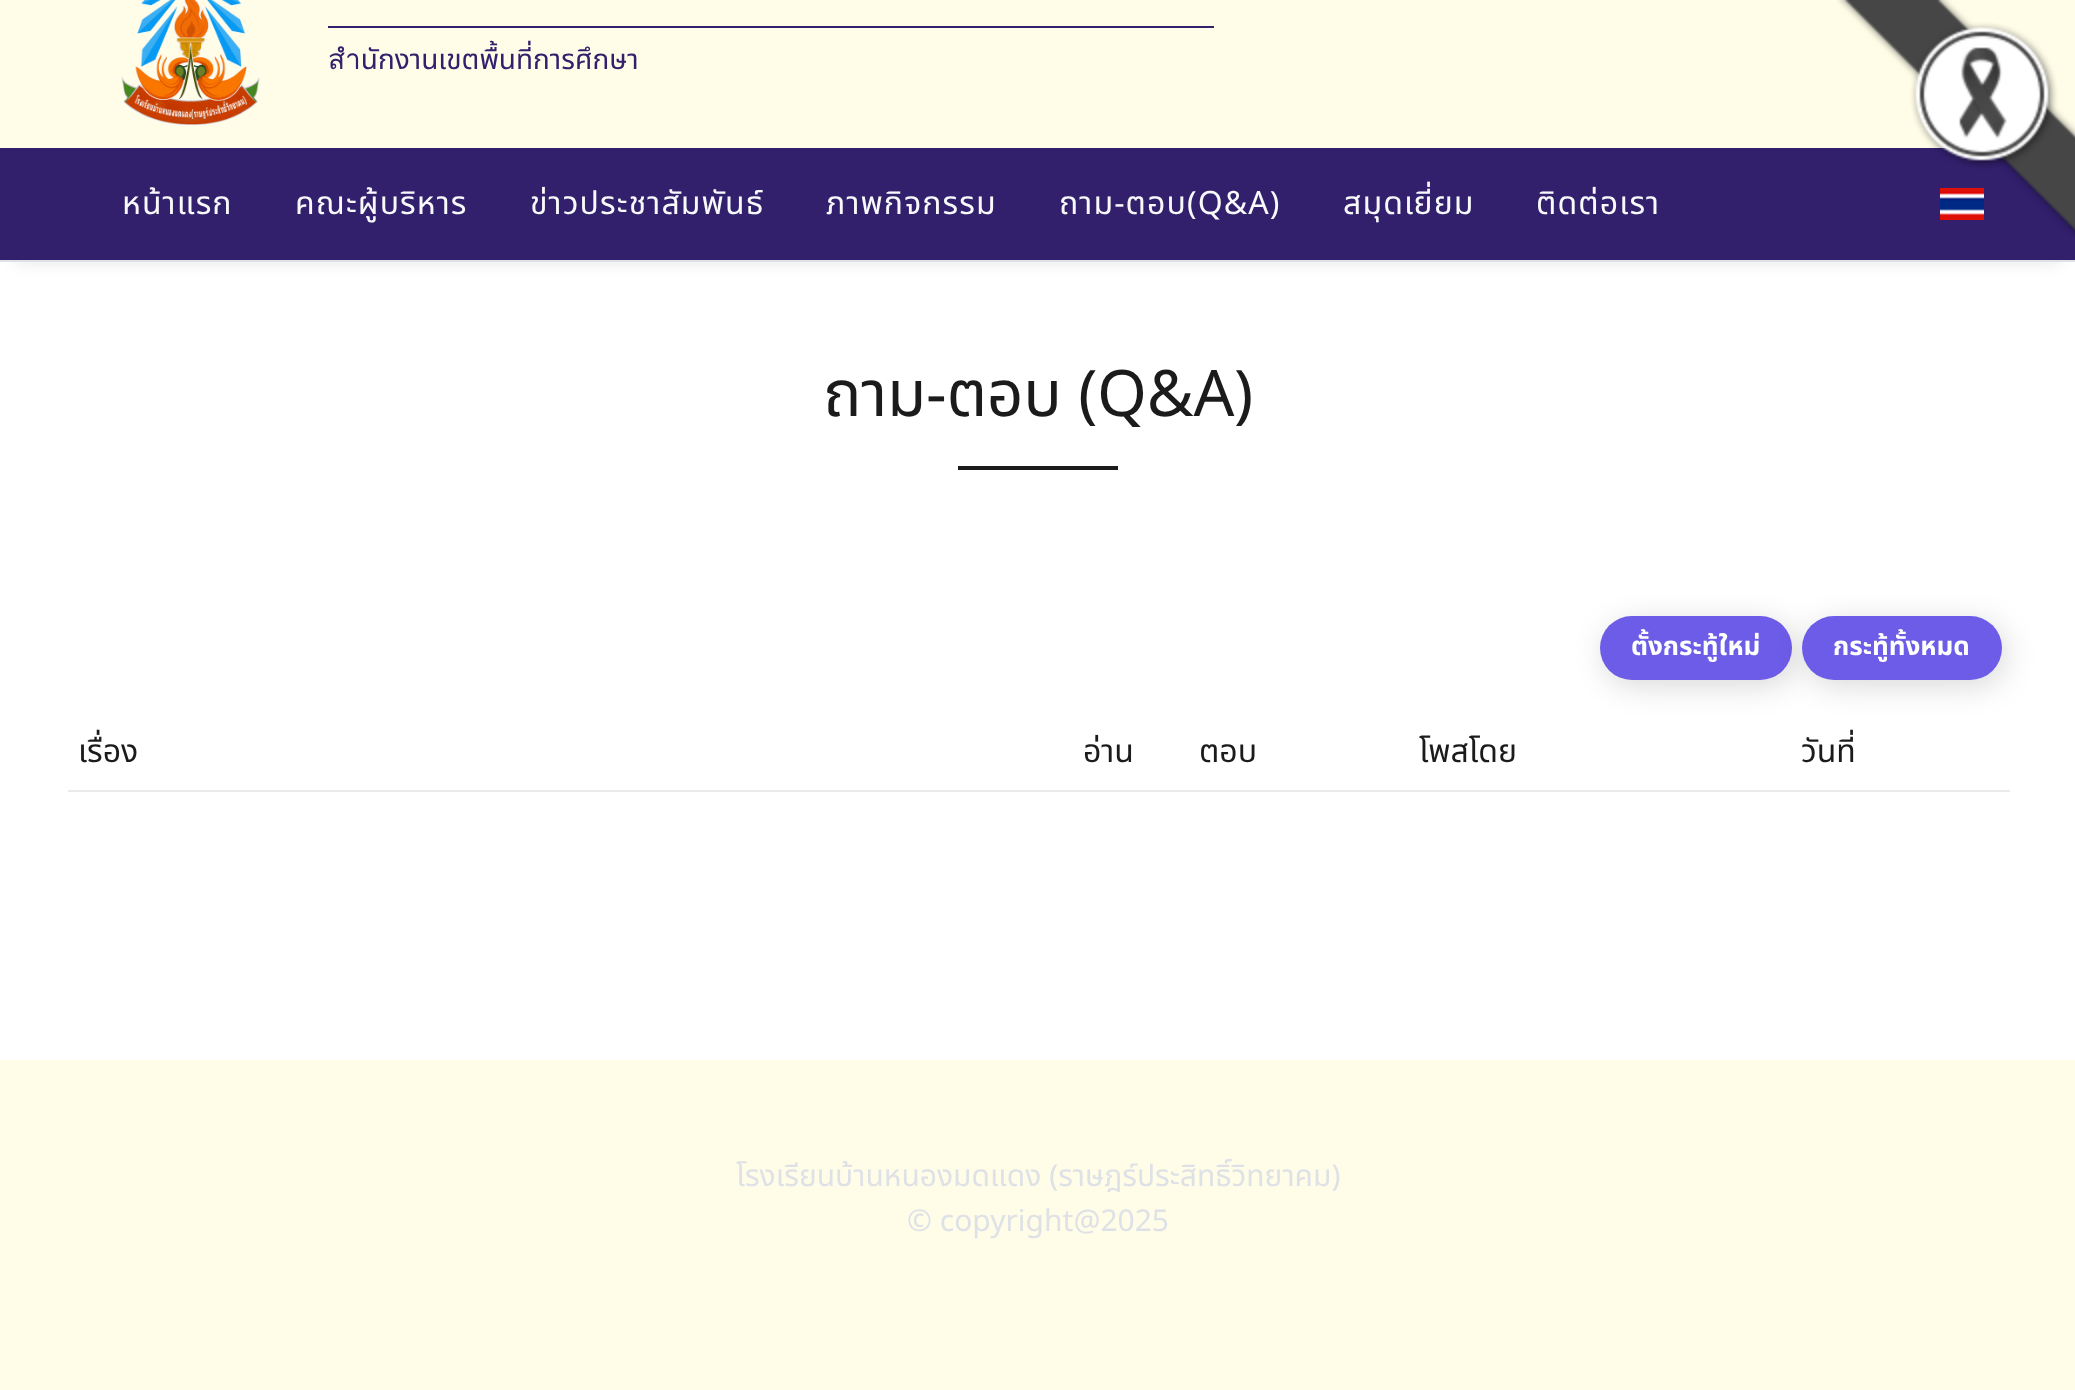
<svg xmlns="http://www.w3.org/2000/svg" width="2075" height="1390">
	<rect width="100%" height="100%" fill="#FFFFFF" />
	<rect x="0" y="0" width="2075" height="148" fill="#FFFDE8" />
	<image x="121" y="0" width="139" height="126" href="assets/img1.png" />
	<rect x="328" y="26" width="886" height="2" fill="#32206D" />
	<text x="328" y="69" font-family="Noto Sans Thai" font-size="28" fill="#32206D">สำนักงานเขตพื้นที่การศึกษา</text>
	<rect x="16" y="180" width="2044" height="82" fill="#000000" fill-opacity="0.1" filter="blur(8px)" />
	<rect x="0" y="148" width="2075" height="112" fill="#32206D" />
	<image x="1940" y="188" width="44" height="32" href="assets/img3.png" />
	<image x="1837" y="0" width="238" height="237" href="assets/img2.png" />
	<rect x="0" y="260" width="2075" height="2" fill="#DEE2E6" />
	<g font-family="Noto Sans Thai" font-size="32" letter-spacing="1.1" fill="#F8F9FA">
		<text x="122" y="214">หน้าแรก</text>
		<text x="295" y="214">คณะผู้บริหาร</text>
		<text x="530" y="214">ข่าวประชาสัมพันธ์</text>
		<text x="826" y="214">ภาพกิจกรรม</text>
		<text x="1059" y="214">ถาม-ตอบ(Q&amp;A)</text>
		<text x="1343" y="214">สมุดเยี่ยม</text>
		<text x="1536" y="214">ติดต่อเรา</text>
	</g>
	<text x="823" y="416" font-family="Noto Sans Thai" font-size="64" letter-spacing="-0.25" fill="#1B1B1B">ถาม-ตอบ (Q&amp;A)</text>
	<rect x="958" y="466" width="160" height="4" fill="#1B1B1B" />
	<rect x="1604" y="622" width="192" height="64" rx="32" fill="#000000" fill-opacity="0.15" filter="blur(15px)" />
	<rect x="1600" y="616" width="192" height="64" rx="32" fill="#6C5CE7" />
	<text x="1631" y="655" font-family="Noto Sans Thai" font-size="26" font-weight="700" fill="#FFFFFF">ตั้งกระทู้ใหม่</text>
	<rect x="1806" y="622" width="200" height="64" rx="32" fill="#000000" fill-opacity="0.15" filter="blur(15px)" />
	<rect x="1802" y="616" width="200" height="64" rx="32" fill="#6C5CE7" />
	<text x="1833" y="655" font-family="Noto Sans Thai" font-size="26" font-weight="700" fill="#FFFFFF">กระทู้ทั้งหมด</text>
	<g font-family="Noto Sans Thai" font-size="32" fill="#1B1B1B">
		<text x="78" y="762">เรื่อง</text>
		<text x="1083" y="762">อ่าน</text>
		<text x="1199" y="762">ตอบ</text>
		<text x="1419" y="762">โพสโดย</text>
	</g>
	<rect x="68" y="790" width="1942" height="2" fill="#EBEAEA" />
	<text x="1801" y="762" font-family="Noto Sans Thai" font-size="32" fill="#1B1B1B">วันที่</text>
	<rect x="0" y="1060" width="2075" height="330" fill="#FFFDE8" />
	<g font-family="Noto Sans Thai" font-size="30" fill="#DEE2E6">
		<text x="736" y="1186">โรงเรียนบ้านหนองมดแดง (ราษฎร์ประสิทธิ์วิทยาคม)</text>
		<text x="907" y="1231">© copyright@2025</text>
	</g>
</svg>
